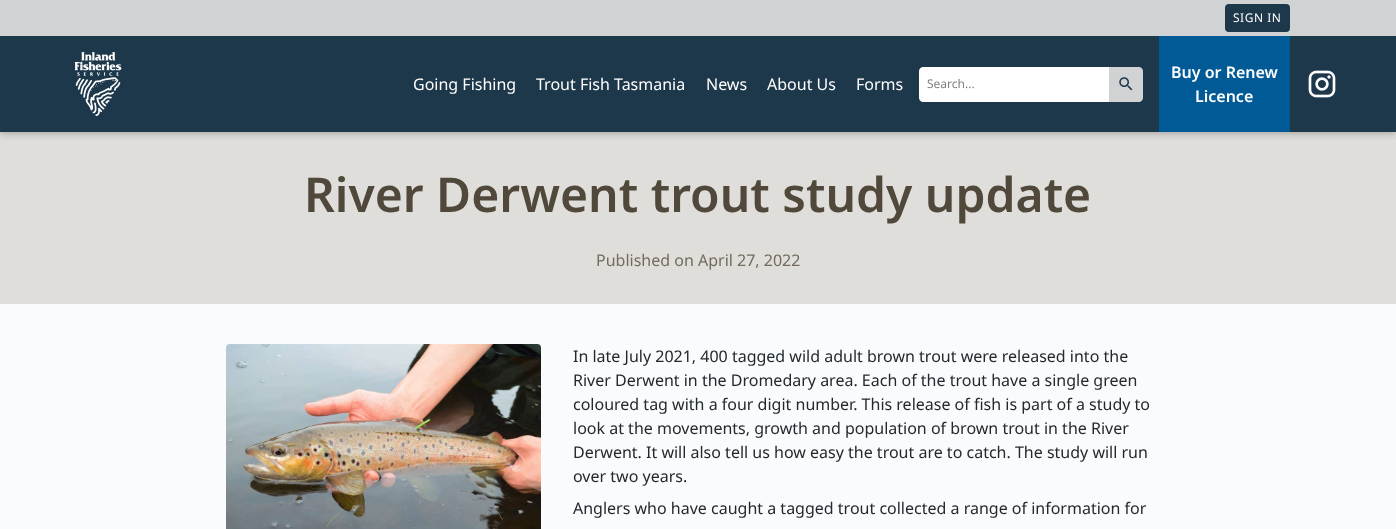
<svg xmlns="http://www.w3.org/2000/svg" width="1396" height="529">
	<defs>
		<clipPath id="clip1"><rect x="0" y="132" width="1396" height="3" /></clipPath>
		<clipPath id="clip2"><rect x="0" y="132" width="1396" height="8" /></clipPath>
	</defs>
	<rect width="100%" height="100%" fill="#1D374B" />
	<rect x="0" y="0" width="1396" height="36" fill="#D1D2D4" />
	<rect x="1225" y="4" width="65" height="28" rx="4" fill="#1D374B" />
	<text x="1233" y="22" font-family="Noto Sans" font-size="12" letter-spacing="0.5" fill="#FFFFFF">SIGN IN</text>
	<rect x="0" y="132" width="1396" height="172" fill="#E0DEDA" />
	<g clip-path="url(#clip1)">
		<rect x="0" y="38" width="1396" height="96" fill="#000000" fill-opacity="0.08" filter="blur(2px)" />
	</g>
	<g clip-path="url(#clip2)">
		<rect x="0" y="40" width="1396" height="96" fill="#000000" fill-opacity="0.12" filter="blur(4px)" />
	</g>
	<image x="74" y="52" width="48" height="64" href="assets/img1.png" />
	<g font-family="Noto Sans" font-size="16" fill="#FFFFFF">
		<text x="413" y="90">Going Fishing</text>
		<text x="536" y="90">Trout Fish Tasmania</text>
		<text x="706" y="90">News</text>
		<text x="767" y="90">About Us</text>
		<text x="856" y="90">Forms</text>
	</g>
	<path d="M923 67H1109V102H923C921 102 919 100 919 98V71C919 69 921 67 923 67Z" fill="#FFFFFF" />
	<text x="927" y="88" font-family="Noto Sans" font-size="12" fill="#808080">Search...</text>
	<path d="M1109 67H1139C1141 67 1143 69 1143 71V98C1143 100 1141 102 1139 102H1109Z" fill="#D1D2D4" />
	<image x="1119" y="77" width="14" height="14" href="assets/img2.png" />
	<rect x="1159" y="36" width="131" height="96" fill="#005A96" />
	<g font-family="Noto Sans" font-size="16" font-weight="600" fill="#FFFFFF">
		<text x="1171" y="78">Buy or Renew</text>
		<text x="1195" y="102">Licence</text>
	</g>
	<image x="1308" y="70" width="28" height="28" href="assets/img3.png" />
	<rect x="0" y="304" width="1396" height="225" fill="#FAFBFC" />
	<text x="304" y="212" font-family="Noto Sans" font-size="48" font-weight="600" fill="#4F483B">River Derwent trout study update</text>
	<text x="596" y="266" font-family="Noto Sans" font-size="16" fill="#736C5E">Published on April 27, 2022</text>
	<image x="226" y="344" width="315" height="185" href="assets/img4.png" />
	<g font-family="Noto Sans" font-size="16" fill="#22292F">
		<text x="573" y="362">In late July 2021, 400 tagged wild adult brown trout were released into the</text>
		<text x="573" y="386">River Derwent in the Dromedary area. Each of the trout have a single green</text>
		<text x="573" y="410">coloured tag with a four digit number. This release of fish is part of a study to</text>
		<text x="573" y="434">look at the movements, growth and population of brown trout in the River</text>
		<text x="573" y="458">Derwent. It will also tell us how easy the trout are to catch. The study will run</text>
		<text x="573" y="482">over two years.</text>
		<text x="573" y="514">Anglers who have caught a tagged trout collected a range of information for</text>
	</g>
</svg>
